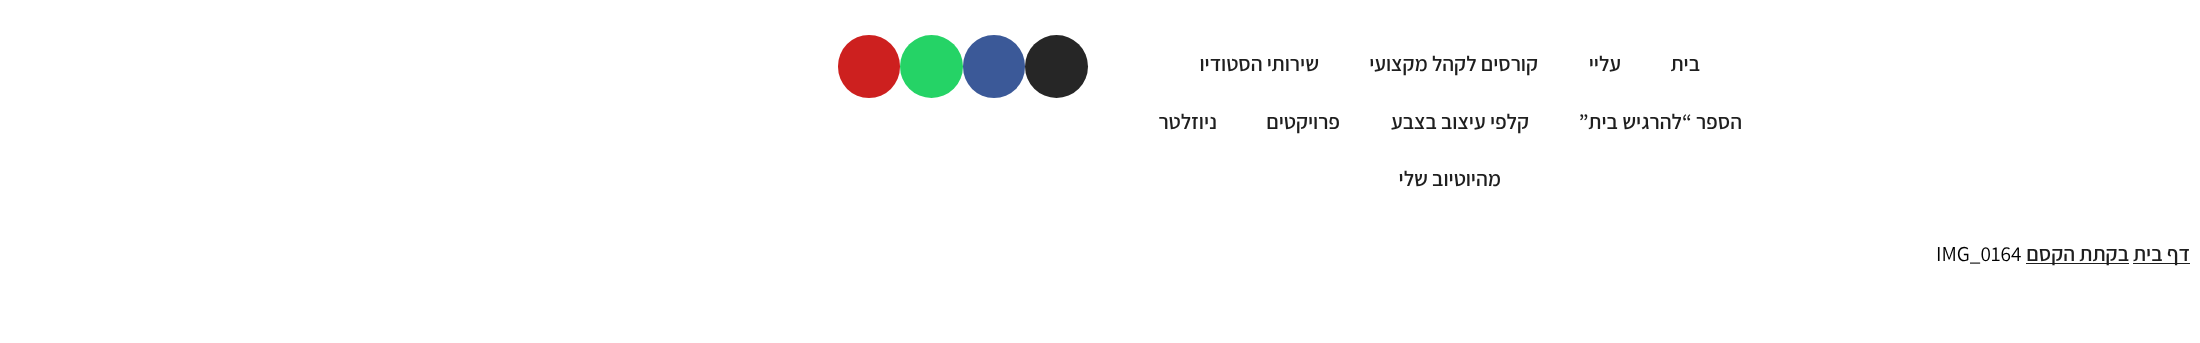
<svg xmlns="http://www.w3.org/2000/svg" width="2200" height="343">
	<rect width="100%" height="100%" fill="#FFFFFF" />
	<g font-family="Assistant" font-size="21.25" font-weight="600" direction="rtl" fill="#1F1F1F">
		<text x="1700" y="71">בית</text>
		<text x="1621" y="71">עליי</text>
		<text x="1538" y="71">קורסים לקהל מקצועי</text>
		<text x="1319" y="71">שירותי הסטודיו</text>
		<text x="1742" y="129">הספר “להרגיש בית”</text>
		<text x="1529" y="129">קלפי עיצוב בצבע</text>
		<text x="1340" y="129">פרויקטים</text>
		<text x="1217" y="129">ניוזלטר</text>
		<text x="1501" y="186">מהיוטיוב שלי</text>
	</g>
	<circle cx="1056.5" cy="66.5" r="31.5" fill="#262626" />
	<rect x="963" y="35" width="62" height="63" rx="31" fill="#3B5998" />
	<circle cx="931.5" cy="66.5" r="31.5" fill="#25D366" />
	<rect x="838" y="35" width="62" height="63" rx="31" fill="#CD201F" />
	<rect x="2133" y="263" width="57" height="1" fill="#1F1F1F" />
	<text x="2190" y="261" font-family="Assistant" font-size="21.25" font-weight="600" direction="rtl" fill="#1F1F1F">דף בית</text>
	<rect x="2026" y="263" width="103" height="1" fill="#1F1F1F" />
	<text x="2129" y="261" font-family="Assistant" font-size="21.25" font-weight="600" direction="rtl" fill="#1F1F1F">בקתת הקסם</text>
	<text x="1936" y="261" font-family="Assistant" font-size="21.25" fill="#000000">IMG_0164</text>
</svg>
